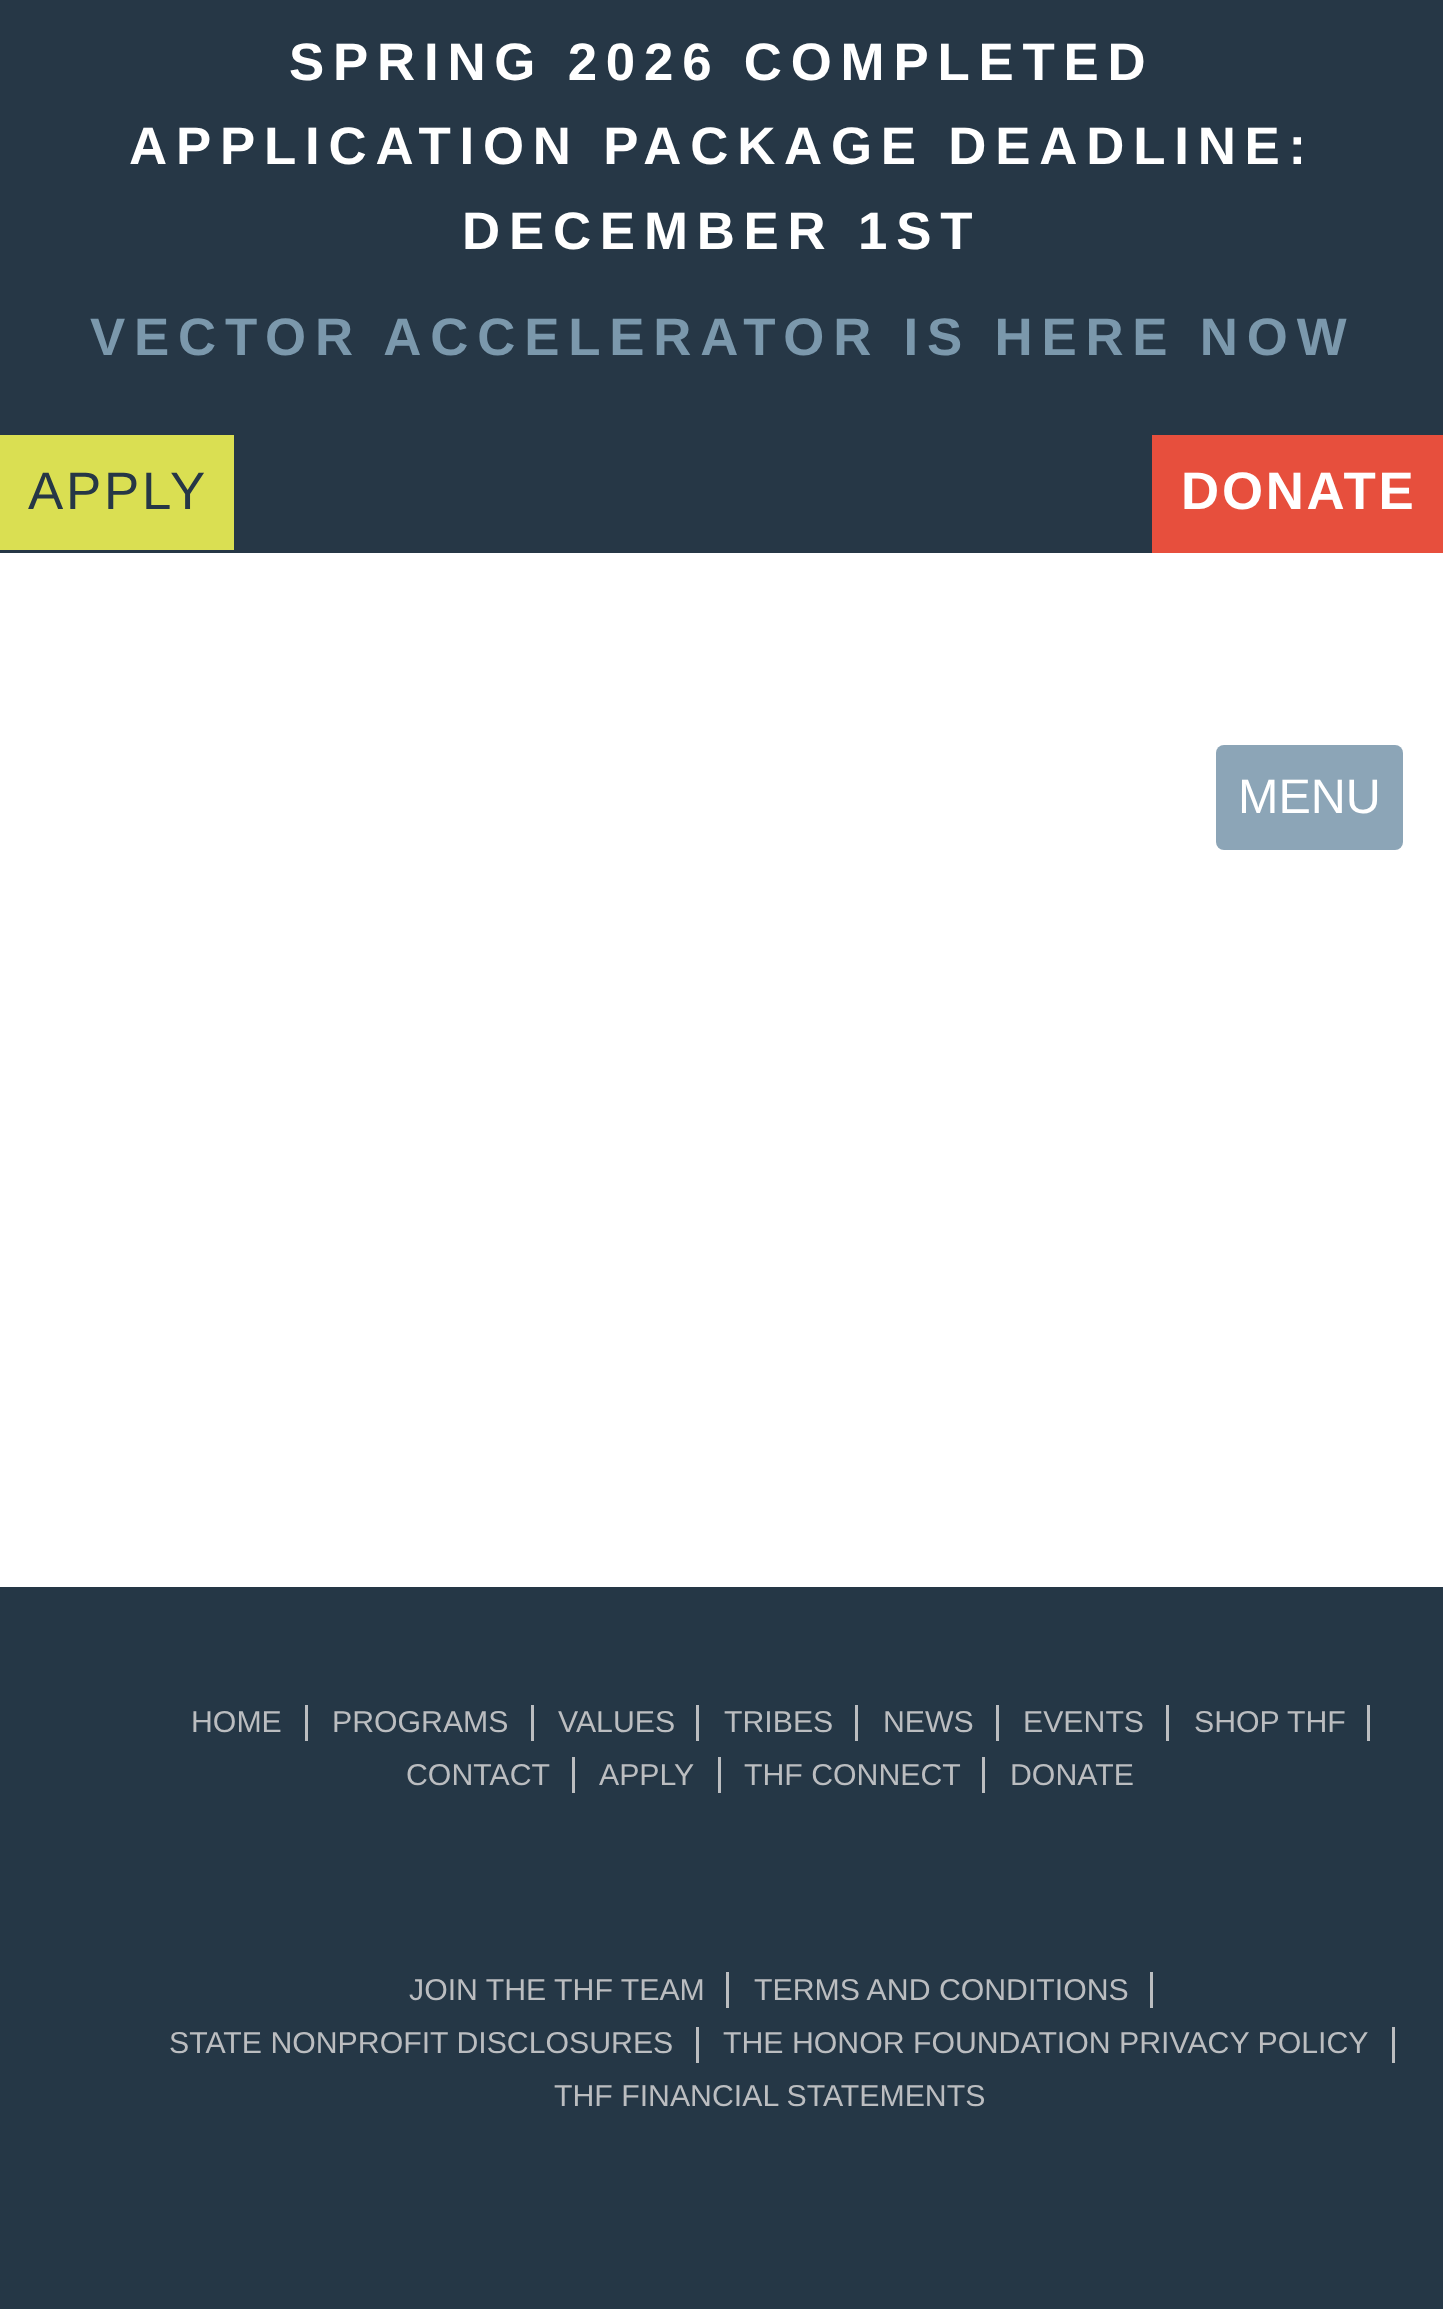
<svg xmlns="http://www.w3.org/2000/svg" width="1443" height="2309">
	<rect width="100%" height="100%" fill="#FFFFFF" />
	<rect x="0" y="0" width="1443" height="553" fill="#263746" />
	<g font-family="Liberation Sans" font-size="52.8" font-weight="700" letter-spacing="8.8" fill="#FFFFFF">
		<text x="289" y="80">SPRING 2026 COMPLETED</text>
		<text x="129" y="164">APPLICATION PACKAGE DEADLINE:</text>
		<text x="462" y="249">DECEMBER 1ST</text>
	</g>
	<text x="90" y="355" font-family="Liberation Sans" font-size="52.8" font-weight="700" letter-spacing="8.8" fill="#7B98AC">VECTOR ACCELERATOR IS HERE NOW</text>
	<rect x="0" y="435" width="234" height="115" fill="#DADF52" />
	<text x="28" y="509" font-family="Liberation Sans" font-size="52.8" letter-spacing="2.75" fill="#263746">APPLY</text>
	<rect x="1152" y="435" width="291" height="118" fill="#E74F3D" />
	<text x="1181" y="509" font-family="Liberation Sans" font-size="52.8" font-weight="700" letter-spacing="2.75" fill="#FFFFFF">DONATE</text>
	<rect x="1216" y="745" width="187" height="105" rx="8" fill="#8CA5B7" />
	<text x="1238" y="813" font-family="Liberation Sans" font-size="48.5" fill="#FFFFFF">MENU</text>
	<rect x="0" y="1587" width="1443" height="722" fill="#253746" />
	<rect x="305" y="1705" width="3" height="36" fill="#BBBDC0" />
	<text x="191" y="1732" font-family="Liberation Sans" font-size="30.25" fill="#BBBDC0">HOME</text>
	<rect x="531" y="1705" width="3" height="36" fill="#BBBDC0" />
	<text x="332" y="1732" font-family="Liberation Sans" font-size="30.25" fill="#BBBDC0">PROGRAMS</text>
	<rect x="696" y="1705" width="3" height="36" fill="#BBBDC0" />
	<text x="558" y="1732" font-family="Liberation Sans" font-size="30.25" fill="#BBBDC0">VALUES</text>
	<rect x="855" y="1705" width="3" height="36" fill="#BBBDC0" />
	<text x="724" y="1732" font-family="Liberation Sans" font-size="30.25" fill="#BBBDC0">TRIBES</text>
	<rect x="996" y="1705" width="3" height="36" fill="#BBBDC0" />
	<text x="883" y="1732" font-family="Liberation Sans" font-size="30.25" fill="#BBBDC0">NEWS</text>
	<rect x="1166" y="1705" width="3" height="36" fill="#BBBDC0" />
	<text x="1023" y="1732" font-family="Liberation Sans" font-size="30.25" fill="#BBBDC0">EVENTS</text>
	<rect x="1367" y="1705" width="3" height="36" fill="#BBBDC0" />
	<text x="1194" y="1732" font-family="Liberation Sans" font-size="30.25" fill="#BBBDC0">SHOP THF</text>
	<rect x="572" y="1757" width="3" height="36" fill="#BBBDC0" />
	<text x="406" y="1785" font-family="Liberation Sans" font-size="30.25" fill="#BBBDC0">CONTACT</text>
	<rect x="718" y="1757" width="3" height="36" fill="#BBBDC0" />
	<text x="599" y="1785" font-family="Liberation Sans" font-size="30.25" fill="#BBBDC0">APPLY</text>
	<rect x="982" y="1757" width="3" height="36" fill="#BBBDC0" />
	<g font-family="Liberation Sans" font-size="30.25" fill="#BBBDC0">
		<text x="744" y="1785">THF CONNECT</text>
		<text x="1010" y="1785">DONATE</text>
	</g>
	<rect x="726" y="1972" width="3" height="36" fill="#BBBDC0" />
	<text x="409" y="2000" font-family="Liberation Sans" font-size="30.25" fill="#BBBDC0">JOIN THE THF TEAM</text>
	<rect x="1150" y="1972" width="3" height="36" fill="#BBBDC0" />
	<text x="754" y="2000" font-family="Liberation Sans" font-size="30.25" fill="#BBBDC0">TERMS AND CONDITIONS</text>
	<rect x="696" y="2027" width="3" height="36" fill="#BBBDC0" />
	<text x="169" y="2053" font-family="Liberation Sans" font-size="30.25" fill="#BBBDC0">STATE NONPROFIT DISCLOSURES</text>
	<rect x="1392" y="2027" width="3" height="36" fill="#BBBDC0" />
	<g font-family="Liberation Sans" font-size="30.25" fill="#BBBDC0">
		<text x="723" y="2053">THE HONOR FOUNDATION PRIVACY POLICY</text>
		<text x="554" y="2106">THF FINANCIAL STATEMENTS</text>
	</g>
</svg>
